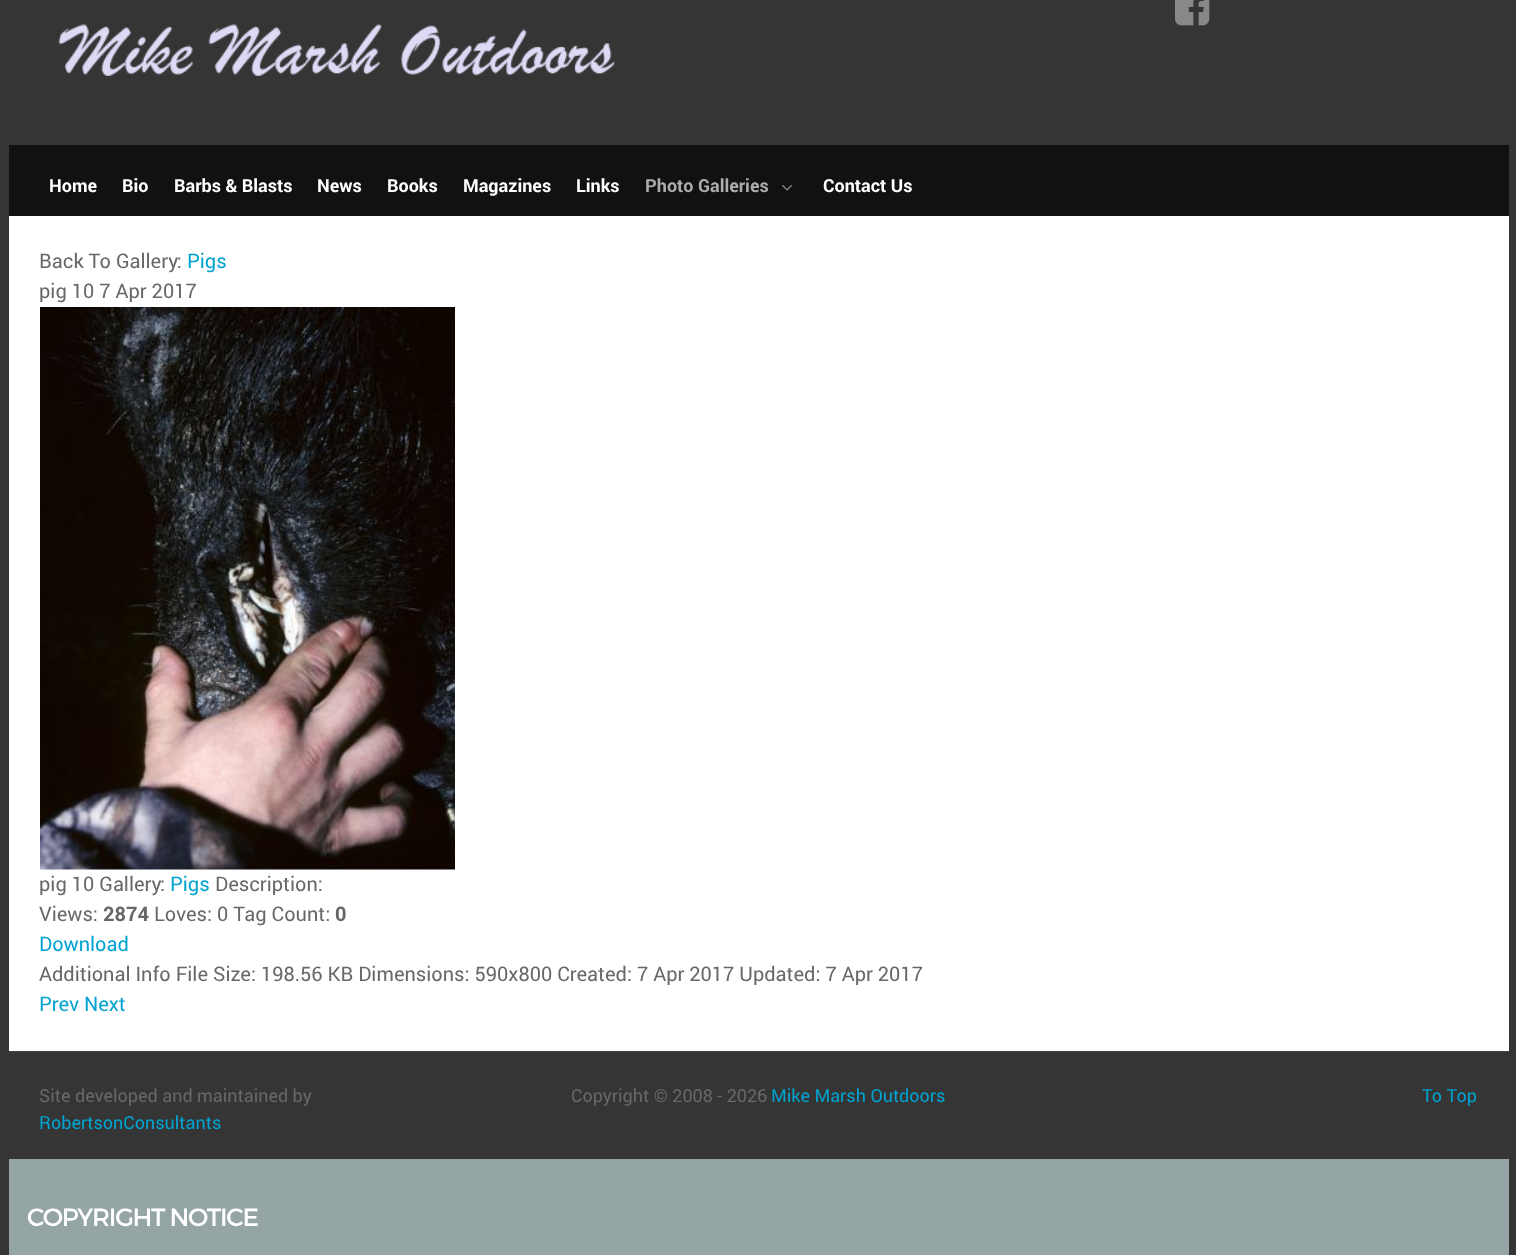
<svg xmlns="http://www.w3.org/2000/svg" width="1516" height="1255">
	<rect width="100%" height="100%" fill="#353535" />
	<image x="1175" y="0" width="35" height="26" href="assets/img1.png" />
	<image x="58" y="24" width="558" height="52" href="assets/img2.png" />
	<rect x="9" y="145" width="1500" height="71" fill="#111111" />
	<g font-family="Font" font-size="18" font-weight="700" fill="#FFFFFF">
		<text x="49" y="192">Home</text>
		<text x="122" y="192">Bio</text>
		<text x="174" y="192">Barbs &amp; Blasts</text>
		<text x="317" y="192">News</text>
		<text x="387" y="192">Books</text>
		<text x="463" y="192">Magazines</text>
		<text x="576" y="192">Links</text>
	</g>
	<text x="645" y="192" font-family="Font" font-size="18" font-weight="700" fill="#ACACAC">Photo Galleries</text>
	<image x="782" y="185" width="10" height="6" href="assets/img3.png" />
	<text x="823" y="192" font-family="Font" font-size="18" font-weight="700" fill="#FFFFFF">Contact Us</text>
	<rect x="9" y="216" width="1500" height="835" fill="#FFFFFF" />
	<text x="39" y="268" font-family="Font" font-size="20" fill="#686868">Back To Gallery:</text>
	<text x="187" y="268" font-family="Font" font-size="20" fill="#01A3D1">Pigs</text>
	<text x="39" y="298" font-family="Font" font-size="20" fill="#686868">pig 10 7 Apr 2017</text>
	<image x="40" y="307" width="415" height="563" href="assets/img4.png" />
	<text x="39" y="891" font-family="Font" font-size="20" fill="#686868">pig 10 Gallery:</text>
	<text x="170" y="891" font-family="Font" font-size="20" fill="#01A3D1">Pigs</text>
	<g font-family="Font" font-size="20" fill="#686868">
		<text x="215" y="891">Description:</text>
		<text x="39" y="921">Views:</text>
	</g>
	<text x="103" y="921" font-family="Font" font-size="20" font-weight="700" fill="#686868">2874</text>
	<text x="154" y="921" font-family="Font" font-size="20" fill="#686868">Loves: 0 Tag Count:</text>
	<text x="335" y="921" font-family="Font" font-size="20" font-weight="700" fill="#686868">0</text>
	<text x="39" y="951" font-family="Font" font-size="20" fill="#01A3D1">Download</text>
	<text x="39" y="981" font-family="Font" font-size="20" fill="#686868">Additional Info File Size: 198.56 KB Dimensions: 590x800 Created: 7 Apr 2017 Updated: 7 Apr 2017</text>
	<text x="39" y="1011" font-family="Font" font-size="20" fill="#01A3D1">Prev Next</text>
	<rect x="9" y="1051" width="1500" height="1" fill="#424242" />
	<text x="39" y="1102" font-family="Font" font-size="18" fill="#686868">Site developed and maintained by</text>
	<text x="39" y="1129" font-family="Font" font-size="18" fill="#01A3D1">RobertsonConsultants</text>
	<text x="571" y="1102" font-family="Font" font-size="18" fill="#686868">Copyright © 2008 - 2026</text>
	<g font-family="Font" font-size="18" fill="#01A3D1">
		<text x="771" y="1102">Mike Marsh Outdoors</text>
		<text x="1422" y="1102">To Top</text>
	</g>
	<rect x="9" y="1159" width="1500" height="96" fill="#95A5A6" />
	<text x="27" y="1226" font-family="Montserrat" font-size="25" letter-spacing="-1.25" fill="#FFFFFF">COPYRIGHT NOTICE</text>
</svg>
